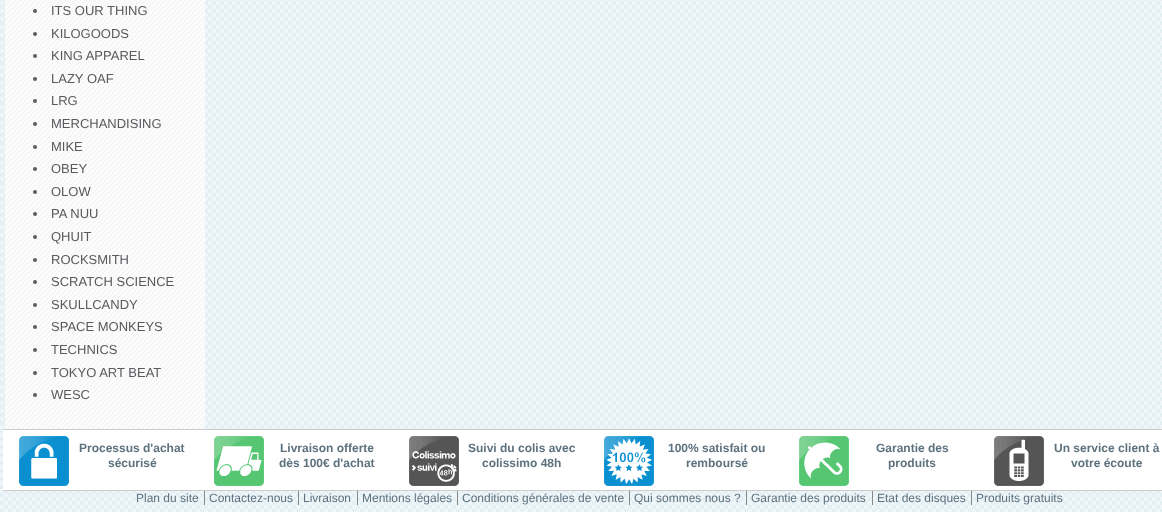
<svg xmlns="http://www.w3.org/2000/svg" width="1162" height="512">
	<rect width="100%" height="100%" fill="#FFFFFF" />
	<image x="0" y="0" width="1162" height="512" href="assets/img1.png" />
	<image x="5" y="0" width="200" height="429" href="assets/img2.png" />
	<circle cx="35" cy="11" r="2" fill="#5D5C5E" />
	<text x="51" y="15" font-family="Liberation Sans" font-size="13" fill="#595A5E">ITS OUR THING</text>
	<circle cx="35" cy="34" r="2" fill="#5D5C5E" />
	<text x="51" y="38" font-family="Liberation Sans" font-size="13" fill="#595A5E">KILOGOODS</text>
	<circle cx="35" cy="56" r="2" fill="#5D5C5E" />
	<text x="51" y="60" font-family="Liberation Sans" font-size="13" fill="#595A5E">KING APPAREL</text>
	<circle cx="35" cy="79" r="2" fill="#5D5C5E" />
	<text x="51" y="83" font-family="Liberation Sans" font-size="13" fill="#595A5E">LAZY OAF</text>
	<circle cx="35" cy="101" r="2" fill="#5D5C5E" />
	<text x="51" y="105" font-family="Liberation Sans" font-size="13" fill="#595A5E">LRG</text>
	<circle cx="35" cy="124" r="2" fill="#5D5C5E" />
	<text x="51" y="128" font-family="Liberation Sans" font-size="13" fill="#595A5E">MERCHANDISING</text>
	<circle cx="35" cy="147" r="2" fill="#5D5C5E" />
	<text x="51" y="151" font-family="Liberation Sans" font-size="13" fill="#595A5E">MIKE</text>
	<circle cx="35" cy="169" r="2" fill="#5D5C5E" />
	<text x="51" y="173" font-family="Liberation Sans" font-size="13" fill="#595A5E">OBEY</text>
	<circle cx="35" cy="192" r="2" fill="#5D5C5E" />
	<text x="51" y="196" font-family="Liberation Sans" font-size="13" fill="#595A5E">OLOW</text>
	<circle cx="35" cy="214" r="2" fill="#5D5C5E" />
	<text x="51" y="218" font-family="Liberation Sans" font-size="13" fill="#595A5E">PA NUU</text>
	<circle cx="35" cy="237" r="2" fill="#5D5C5E" />
	<text x="51" y="241" font-family="Liberation Sans" font-size="13" fill="#595A5E">QHUIT</text>
	<circle cx="35" cy="260" r="2" fill="#5D5C5E" />
	<text x="51" y="264" font-family="Liberation Sans" font-size="13" fill="#595A5E">ROCKSMITH</text>
	<circle cx="35" cy="282" r="2" fill="#5D5C5E" />
	<text x="51" y="286" font-family="Liberation Sans" font-size="13" fill="#595A5E">SCRATCH SCIENCE</text>
	<circle cx="35" cy="305" r="2" fill="#5D5C5E" />
	<text x="51" y="309" font-family="Liberation Sans" font-size="13" fill="#595A5E">SKULLCANDY</text>
	<circle cx="35" cy="327" r="2" fill="#5D5C5E" />
	<text x="51" y="331" font-family="Liberation Sans" font-size="13" fill="#595A5E">SPACE MONKEYS</text>
	<circle cx="35" cy="350" r="2" fill="#5D5C5E" />
	<text x="51" y="354" font-family="Liberation Sans" font-size="13" fill="#595A5E">TECHNICS</text>
	<circle cx="35" cy="373" r="2" fill="#5D5C5E" />
	<text x="51" y="377" font-family="Liberation Sans" font-size="13" fill="#595A5E">TOKYO ART BEAT</text>
	<circle cx="35" cy="395" r="2" fill="#5D5C5E" />
	<text x="51" y="399" font-family="Liberation Sans" font-size="13" fill="#595A5E">WESC</text>
	<rect x="3" y="430" width="1159" height="60" fill="#FFFFFF" />
	<rect x="3" y="429" width="1159" height="1" fill="#CCCCCC" />
	<rect x="3" y="490" width="1159" height="1" fill="#CCCCCC" />
	<image x="19" y="436" width="50" height="50" href="assets/img3.png" />
	<g font-family="Liberation Sans" font-size="12" font-weight="700" fill="#5D717E">
		<text x="79" y="452">Processus d'achat</text>
		<text x="108" y="467">sécurisé</text>
	</g>
	<image x="214" y="436" width="50" height="50" href="assets/img4.png" />
	<g font-family="Liberation Sans" font-size="12" font-weight="700" fill="#5D717E">
		<text x="280" y="452">Livraison offerte</text>
		<text x="279" y="467">dès 100€ d'achat</text>
	</g>
	<image x="409" y="436" width="50" height="50" href="assets/img5.png" />
	<g font-family="Liberation Sans" font-size="12" font-weight="700" fill="#5D717E">
		<text x="468" y="452">Suivi du colis avec</text>
		<text x="482" y="467">colissimo 48h</text>
	</g>
	<image x="604" y="436" width="50" height="50" href="assets/img6.png" />
	<g font-family="Liberation Sans" font-size="12" font-weight="700" fill="#5D717E">
		<text x="668" y="452">100% satisfait ou</text>
		<text x="686" y="467">remboursé</text>
	</g>
	<image x="799" y="436" width="50" height="50" href="assets/img7.png" />
	<g font-family="Liberation Sans" font-size="12" font-weight="700" fill="#5D717E">
		<text x="876" y="452">Garantie des</text>
		<text x="888" y="467">produits</text>
	</g>
	<image x="994" y="436" width="50" height="50" href="assets/img8.png" />
	<g font-family="Liberation Sans" font-size="12" font-weight="700" fill="#5D717E">
		<text x="1054" y="452">Un service client à</text>
		<text x="1071" y="467">votre écoute</text>
	</g>
	<g font-family="Liberation Sans" font-size="12" fill="#5D717E">
		<text x="136" y="502">Plan du site</text>
		<text x="209" y="502">Contactez-nous</text>
	</g>
	<rect x="204" y="491" width="1" height="14" fill="#888888" />
	<text x="303" y="502" font-family="Liberation Sans" font-size="12" fill="#5D717E">Livraison</text>
	<rect x="298" y="491" width="1" height="14" fill="#888888" />
	<text x="362" y="502" font-family="Liberation Sans" font-size="12" fill="#5D717E">Mentions légales</text>
	<rect x="357" y="491" width="1" height="14" fill="#888888" />
	<text x="462" y="502" font-family="Liberation Sans" font-size="12" fill="#5D717E">Conditions générales de vente</text>
	<rect x="457" y="491" width="1" height="14" fill="#888888" />
	<text x="634" y="502" font-family="Liberation Sans" font-size="12" fill="#5D717E">Qui sommes nous ?</text>
	<rect x="629" y="491" width="1" height="14" fill="#888888" />
	<text x="751" y="502" font-family="Liberation Sans" font-size="12" fill="#5D717E">Garantie des produits</text>
	<rect x="746" y="491" width="1" height="14" fill="#888888" />
	<text x="877" y="502" font-family="Liberation Sans" font-size="12" fill="#5D717E">Etat des disques</text>
	<rect x="872" y="491" width="1" height="14" fill="#888888" />
	<text x="976" y="502" font-family="Liberation Sans" font-size="12" fill="#5D717E">Produits gratuits</text>
	<rect x="971" y="491" width="1" height="14" fill="#888888" />
</svg>
